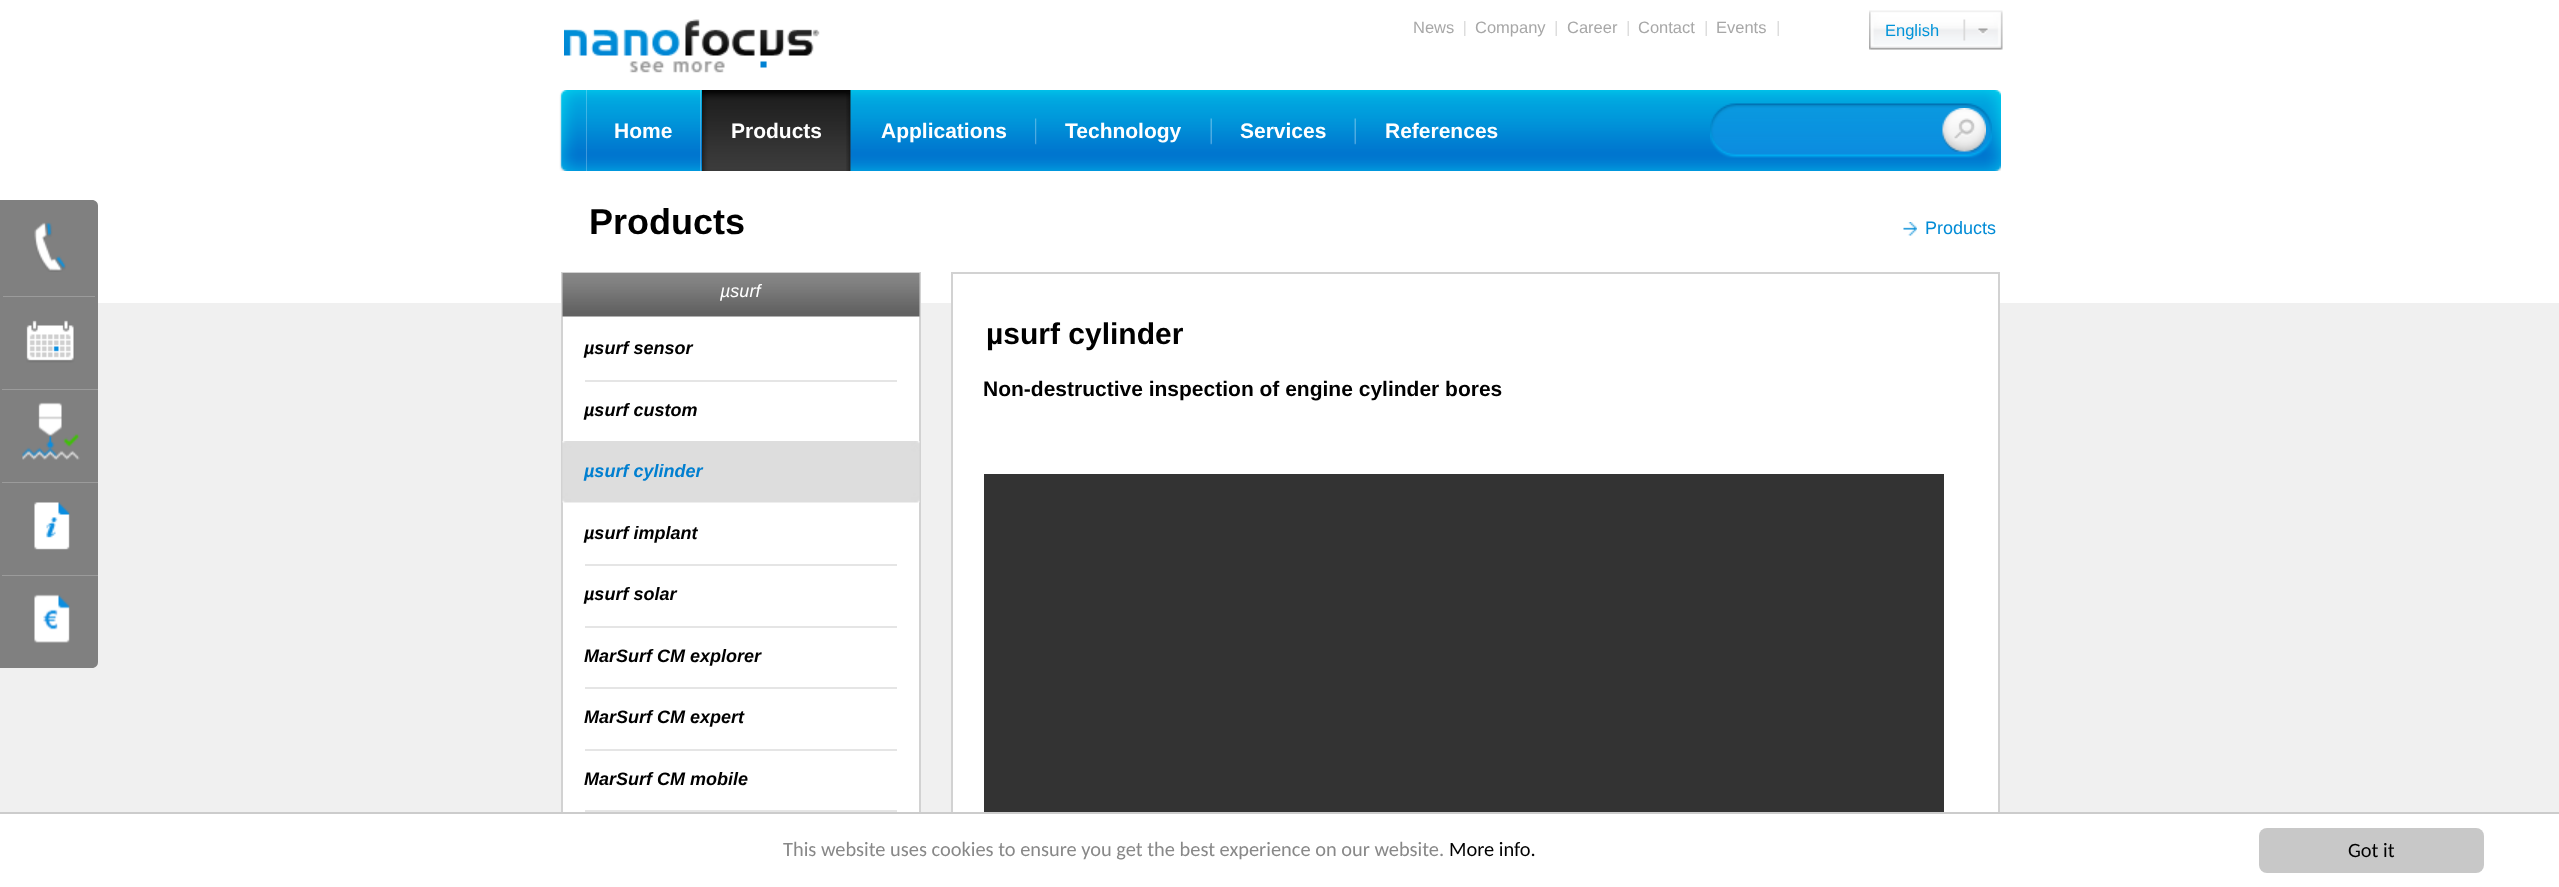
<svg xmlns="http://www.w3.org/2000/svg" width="2559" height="887">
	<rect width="100%" height="100%" fill="#F0F0F0" />
	<rect x="0" y="0" width="2559" height="303" fill="#FFFFFF" />
	<path d="M0 200H92C95.5 200 98 202.5 98 206V297H0Z" fill="#808080" />
	<rect x="3" y="296" width="92" height="1" fill="#9B9B9B" />
	<image x="34" y="222" width="32" height="50" href="assets/img1.png" />
	<rect x="0" y="297" width="98" height="279" fill="#808080" />
	<rect x="2" y="389" width="96" height="1" fill="#9B9B9B" />
	<image x="26" y="320" width="49" height="43" href="assets/img2.png" />
	<rect x="2" y="482" width="96" height="1" fill="#9B9B9B" />
	<image x="22" y="402" width="58" height="58" href="assets/img3.png" />
	<rect x="2" y="575" width="96" height="1" fill="#9B9B9B" />
	<image x="34" y="502" width="36" height="48" href="assets/img4.png" />
	<path d="M0 576H98V662C98 665.5 95.5 668 92 668H0Z" fill="#808080" />
	<image x="34" y="594" width="36" height="49" href="assets/img5.png" />
	<image x="564" y="19" width="256" height="54" href="assets/img6.png" />
	<text x="1413" y="33" font-family="Liberation Sans" font-size="16.5" fill="#A7A7A7">News</text>
	<image x="1464" y="21" width="2" height="15" href="assets/img7.png" />
	<text x="1475" y="33" font-family="Liberation Sans" font-size="16.5" fill="#A7A7A7">Company</text>
	<image x="1555" y="21" width="2" height="15" href="assets/img8.png" />
	<text x="1567" y="33" font-family="Liberation Sans" font-size="16.5" fill="#A7A7A7">Career</text>
	<image x="1627" y="21" width="2" height="15" href="assets/img8.png" />
	<text x="1638" y="33" font-family="Liberation Sans" font-size="16.5" fill="#A7A7A7">Contact</text>
	<image x="1705" y="21" width="2" height="15" href="assets/img8.png" />
	<text x="1716" y="33" font-family="Liberation Sans" font-size="16.5" fill="#A7A7A7">Events</text>
	<image x="1777" y="21" width="2" height="15" href="assets/img8.png" />
	<image x="1869" y="10" width="134" height="40" href="assets/img9.png" />
	<text x="1885" y="36" font-family="Liberation Sans" font-size="16.5" fill="#0094D9">English</text>
	<image x="860" y="90" width="1046" height="81" href="assets/img10.png" />
	<image x="559" y="90" width="28" height="81" href="assets/img11.png" />
	<image x="586" y="90" width="115" height="81" href="assets/img12.png" />
	<text x="614" y="138" font-family="Liberation Sans" font-size="21" font-weight="700" fill="#FFFFFF">Home</text>
	<image x="700" y="90" width="2" height="81" href="assets/img13.png" />
	<image x="702" y="90" width="149" height="81" href="assets/img14.png" />
	<image x="846" y="93" width="5" height="78" href="assets/img15.png" />
	<text x="731" y="138" font-family="Liberation Sans" font-size="21" font-weight="700" fill="#FFFFFF">Products</text>
	<image x="850" y="90" width="2" height="81" href="assets/img16.png" />
	<image x="852" y="90" width="8" height="81" href="assets/img17.png" />
	<text x="881" y="138" font-family="Liberation Sans" font-size="21" font-weight="700" fill="#FFFFFF">Applications</text>
	<image x="1035" y="118" width="2" height="27" href="assets/img18.png" />
	<image x="1036" y="94" width="4" height="50" href="assets/img19.png" />
	<text x="1065" y="138" font-family="Liberation Sans" font-size="21" font-weight="700" fill="#FFFFFF">Technology</text>
	<image x="1210" y="118" width="2" height="27" href="assets/img20.png" />
	<image x="1212" y="94" width="3" height="22" href="assets/img21.png" />
	<text x="1240" y="138" font-family="Liberation Sans" font-size="21" font-weight="700" fill="#FFFFFF">Services</text>
	<image x="1354" y="118" width="2" height="27" href="assets/img20.png" />
	<image x="1356" y="94" width="4" height="22" href="assets/img22.png" />
	<text x="1385" y="138" font-family="Liberation Sans" font-size="21" font-weight="700" fill="#FFFFFF">References</text>
	<image x="1906" y="90" width="95" height="81" href="assets/img23.png" />
	<image x="1710" y="103" width="282" height="55" href="assets/img24.png" />
	<image x="1942" y="108" width="44" height="44" href="assets/img25.png" />
	<text x="589" y="234" font-family="Liberation Sans" font-size="36" font-weight="700" fill="#000000">Products</text>
	<image x="1903" y="222" width="14" height="14" href="assets/img26.png" />
	<text x="1925" y="234" font-family="Liberation Sans" font-size="18" fill="#008BD6">Products</text>
	<rect x="563" y="316" width="356" height="496" fill="#FFFFFF" />
	<rect x="562" y="273" width="358" height="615" fill="none" stroke="#D2D2D2" stroke-width="2" />
	<image x="562" y="273" width="358" height="44" href="assets/img27.png" />
	<text x="720" y="297" font-family="Liberation Sans" font-size="18" font-style="italic" fill="#FFFFFF">µsurf</text>
	<rect x="585" y="380" width="312" height="2" fill="#E5E5E5" />
	<g font-family="Liberation Sans" font-size="18" font-weight="700" font-style="italic" fill="#000000">
		<text x="584" y="354">µsurf sensor</text>
		<text x="584" y="416">µsurf custom</text>
	</g>
	<image x="562" y="441" width="358" height="62" href="assets/img28.png" />
	<text x="584" y="477" font-family="Liberation Sans" font-size="18" font-weight="700" font-style="italic" fill="#007FD0">µsurf cylinder</text>
	<rect x="585" y="564" width="312" height="2" fill="#E5E5E5" />
	<text x="584" y="539" font-family="Liberation Sans" font-size="18" font-weight="700" font-style="italic" fill="#000000">µsurf implant</text>
	<rect x="585" y="626" width="312" height="2" fill="#E5E5E5" />
	<text x="584" y="600" font-family="Liberation Sans" font-size="18" font-weight="700" font-style="italic" fill="#000000">µsurf solar</text>
	<rect x="585" y="687" width="312" height="2" fill="#E5E5E5" />
	<text x="584" y="662" font-family="Liberation Sans" font-size="18" font-weight="700" font-style="italic" fill="#000000">MarSurf CM explorer</text>
	<rect x="585" y="749" width="312" height="2" fill="#E5E5E5" />
	<text x="584" y="723" font-family="Liberation Sans" font-size="18" font-weight="700" font-style="italic" fill="#000000">MarSurf CM expert</text>
	<rect x="585" y="810" width="312" height="2" fill="#E5E5E5" />
	<text x="584" y="785" font-family="Liberation Sans" font-size="18" font-weight="700" font-style="italic" fill="#000000">MarSurf CM mobile</text>
	<rect x="953" y="303" width="1045" height="509" fill="#FFFFFF" />
	<rect x="952" y="273" width="1047" height="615" fill="none" stroke="#D2D2D2" stroke-width="2" />
	<text x="986" y="344" font-family="Liberation Sans" font-size="30" font-weight="700" fill="#000000">µsurf cylinder</text>
	<text x="983" y="396" font-family="Liberation Sans" font-size="21" font-weight="700" fill="#000000">Non-destructive inspection of engine cylinder bores</text>
	<image x="984" y="474" width="960" height="338" href="assets/img29.png" />
	<rect x="0" y="814" width="2559" height="73" fill="#FFFFFF" />
	<rect x="0" y="812" width="2559" height="2" fill="#CCCCCC" />
	<text x="783" y="856" font-family="Carlito" font-size="20.4" fill="#888888">This website uses cookies to ensure you get the best experience on our website.</text>
	<text x="1449" y="856" font-family="Carlito" font-size="20.4" fill="#000000">More info.</text>
	<rect x="2259" y="828" width="225" height="45" rx="8" fill="#C8C8C8" />
	<text x="2348" y="857" font-family="Carlito" font-size="20.4" fill="#000000">Got it</text>
</svg>
